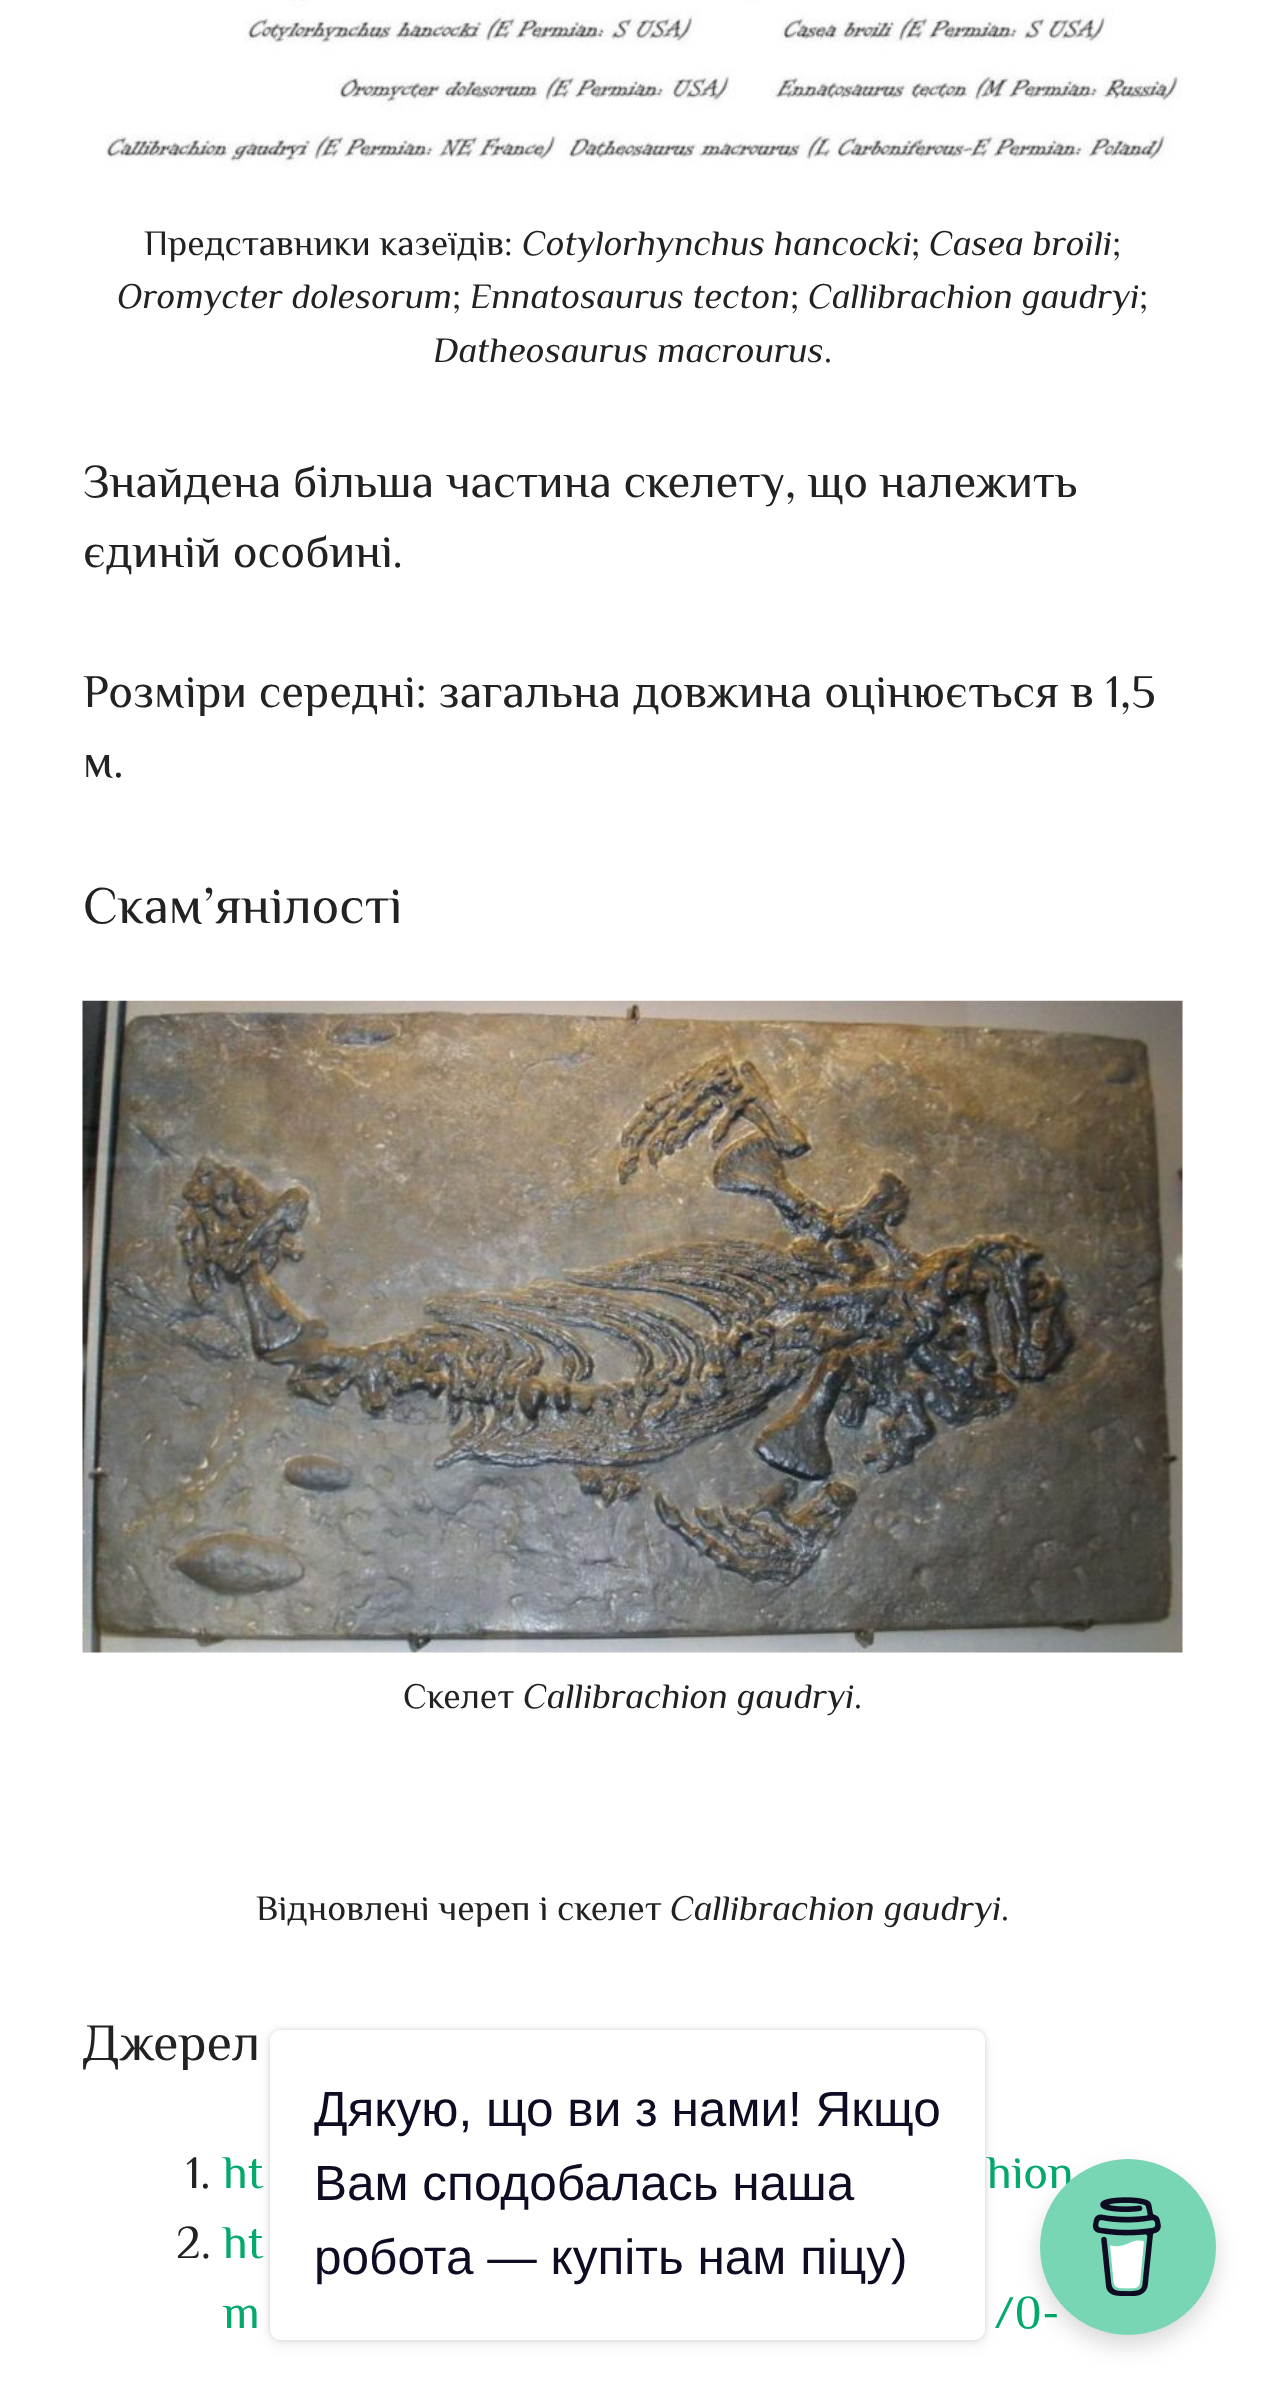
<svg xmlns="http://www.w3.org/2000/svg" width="1265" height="2384">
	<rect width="100%" height="100%" fill="#FFFFFF" />
	<image x="105" y="0" width="1078" height="167" href="assets/img1.png" />
	<text x="144" y="255" font-family="Philosopher" font-size="35.75" fill="#222222">Представники казеїдів:</text>
	<text x="522" y="255" font-family="Philosopher" font-size="35.75" font-style="italic" fill="#222222">Cotylorhynchus hancocki</text>
	<text x="911" y="255" font-family="Philosopher" font-size="35.75" fill="#222222">;</text>
	<text x="929" y="255" font-family="Philosopher" font-size="35.75" font-style="italic" fill="#222222">Casea broili</text>
	<text x="1112" y="255" font-family="Philosopher" font-size="35.75" fill="#222222">;</text>
	<text x="117" y="308" font-family="Philosopher" font-size="35.75" font-style="italic" fill="#222222">Oromycter dolesorum</text>
	<text x="452" y="308" font-family="Philosopher" font-size="35.75" fill="#222222">;</text>
	<text x="470" y="308" font-family="Philosopher" font-size="35.75" font-style="italic" fill="#222222">Ennatosaurus tecton</text>
	<text x="790" y="308" font-family="Philosopher" font-size="35.75" fill="#222222">;</text>
	<text x="808" y="308" font-family="Philosopher" font-size="35.75" font-style="italic" fill="#222222">Callibrachion gaudryi</text>
	<text x="1139" y="308" font-family="Philosopher" font-size="35.75" fill="#222222">;</text>
	<text x="433" y="362" font-family="Philosopher" font-size="35.75" font-style="italic" fill="#222222">Datheosaurus macrourus</text>
	<text x="824" y="362" font-family="Philosopher" font-size="35.75" fill="#222222">.</text>
	<g font-family="Philosopher" font-size="46.75" fill="#222222">
		<text x="83" y="497">Знайдена більша частина скелету, що належить</text>
		<text x="83" y="567">єдиній особині.</text>
		<text x="83" y="707">Розміри середні: загальна довжина оцінюється в 1,5</text>
		<text x="83" y="777">м.</text>
	</g>
	<text x="83" y="923" font-family="Philosopher" font-size="52.25" fill="#222222">Скам’янілості</text>
	<image x="82" y="1000" width="1101" height="653" href="assets/img2.png" />
	<text x="403" y="1708" font-family="Philosopher" font-size="35.75" fill="#222222">Скелет</text>
	<text x="523" y="1708" font-family="Philosopher" font-size="35.75" font-style="italic" fill="#222222">Callibrachion gaudryi</text>
	<g font-family="Philosopher" font-size="35.75" fill="#222222">
		<text x="854" y="1708">.</text>
		<text x="256" y="1920">Відновлені череп і скелет</text>
	</g>
	<text x="670" y="1920" font-family="Philosopher" font-size="35.75" font-style="italic" fill="#222222">Callibrachion gaudryi</text>
	<text x="1001" y="1920" font-family="Philosopher" font-size="35.75" fill="#222222">.</text>
	<text x="83" y="2060" font-family="Philosopher" font-size="52.25" fill="#222222">Джерел</text>
	<text x="186" y="2188" font-family="Philosopher" font-size="46.75" fill="#222222">1.</text>
	<g font-family="Philosopher" font-size="46.75" fill="#04A96C">
		<text x="223" y="2188">ht</text>
		<text x="987" y="2188">hion</text>
	</g>
	<text x="176" y="2258" font-family="Philosopher" font-size="46.75" fill="#222222">2.</text>
	<g font-family="Philosopher" font-size="46.75" fill="#04A96C">
		<text x="223" y="2258">ht</text>
		<text x="223" y="2328">m</text>
		<text x="994" y="2328">/0-</text>
	</g>
	<rect x="270" y="2030" width="715" height="310" rx="11" fill="#000000" fill-opacity="0.15" filter="blur(3px)" />
	<rect x="270" y="2035" width="715" height="311" rx="11" fill="#000000" fill-opacity="0.05" filter="blur(7px)" />
	<rect x="270" y="2030" width="715" height="310" rx="11" fill="#FFFFFF" />
	<g font-family="Liberation Sans" font-size="49.5" fill="#0D0C22">
		<text x="314" y="2126">Дякую, що ви з нами! Якщо</text>
		<text x="314" y="2200">Вам сподобалась наша</text>
		<text x="314" y="2274">робота — купіть нам піцу)</text>
	</g>
	<rect x="1040" y="2170" width="176" height="176" rx="88" fill="#000000" fill-opacity="0.15" filter="blur(11px)" />
	<circle cx="1128" cy="2247" r="88" fill="#79D6B5" />
	<image x="1092" y="2197" width="69" height="99" href="assets/img3.png" />
</svg>
